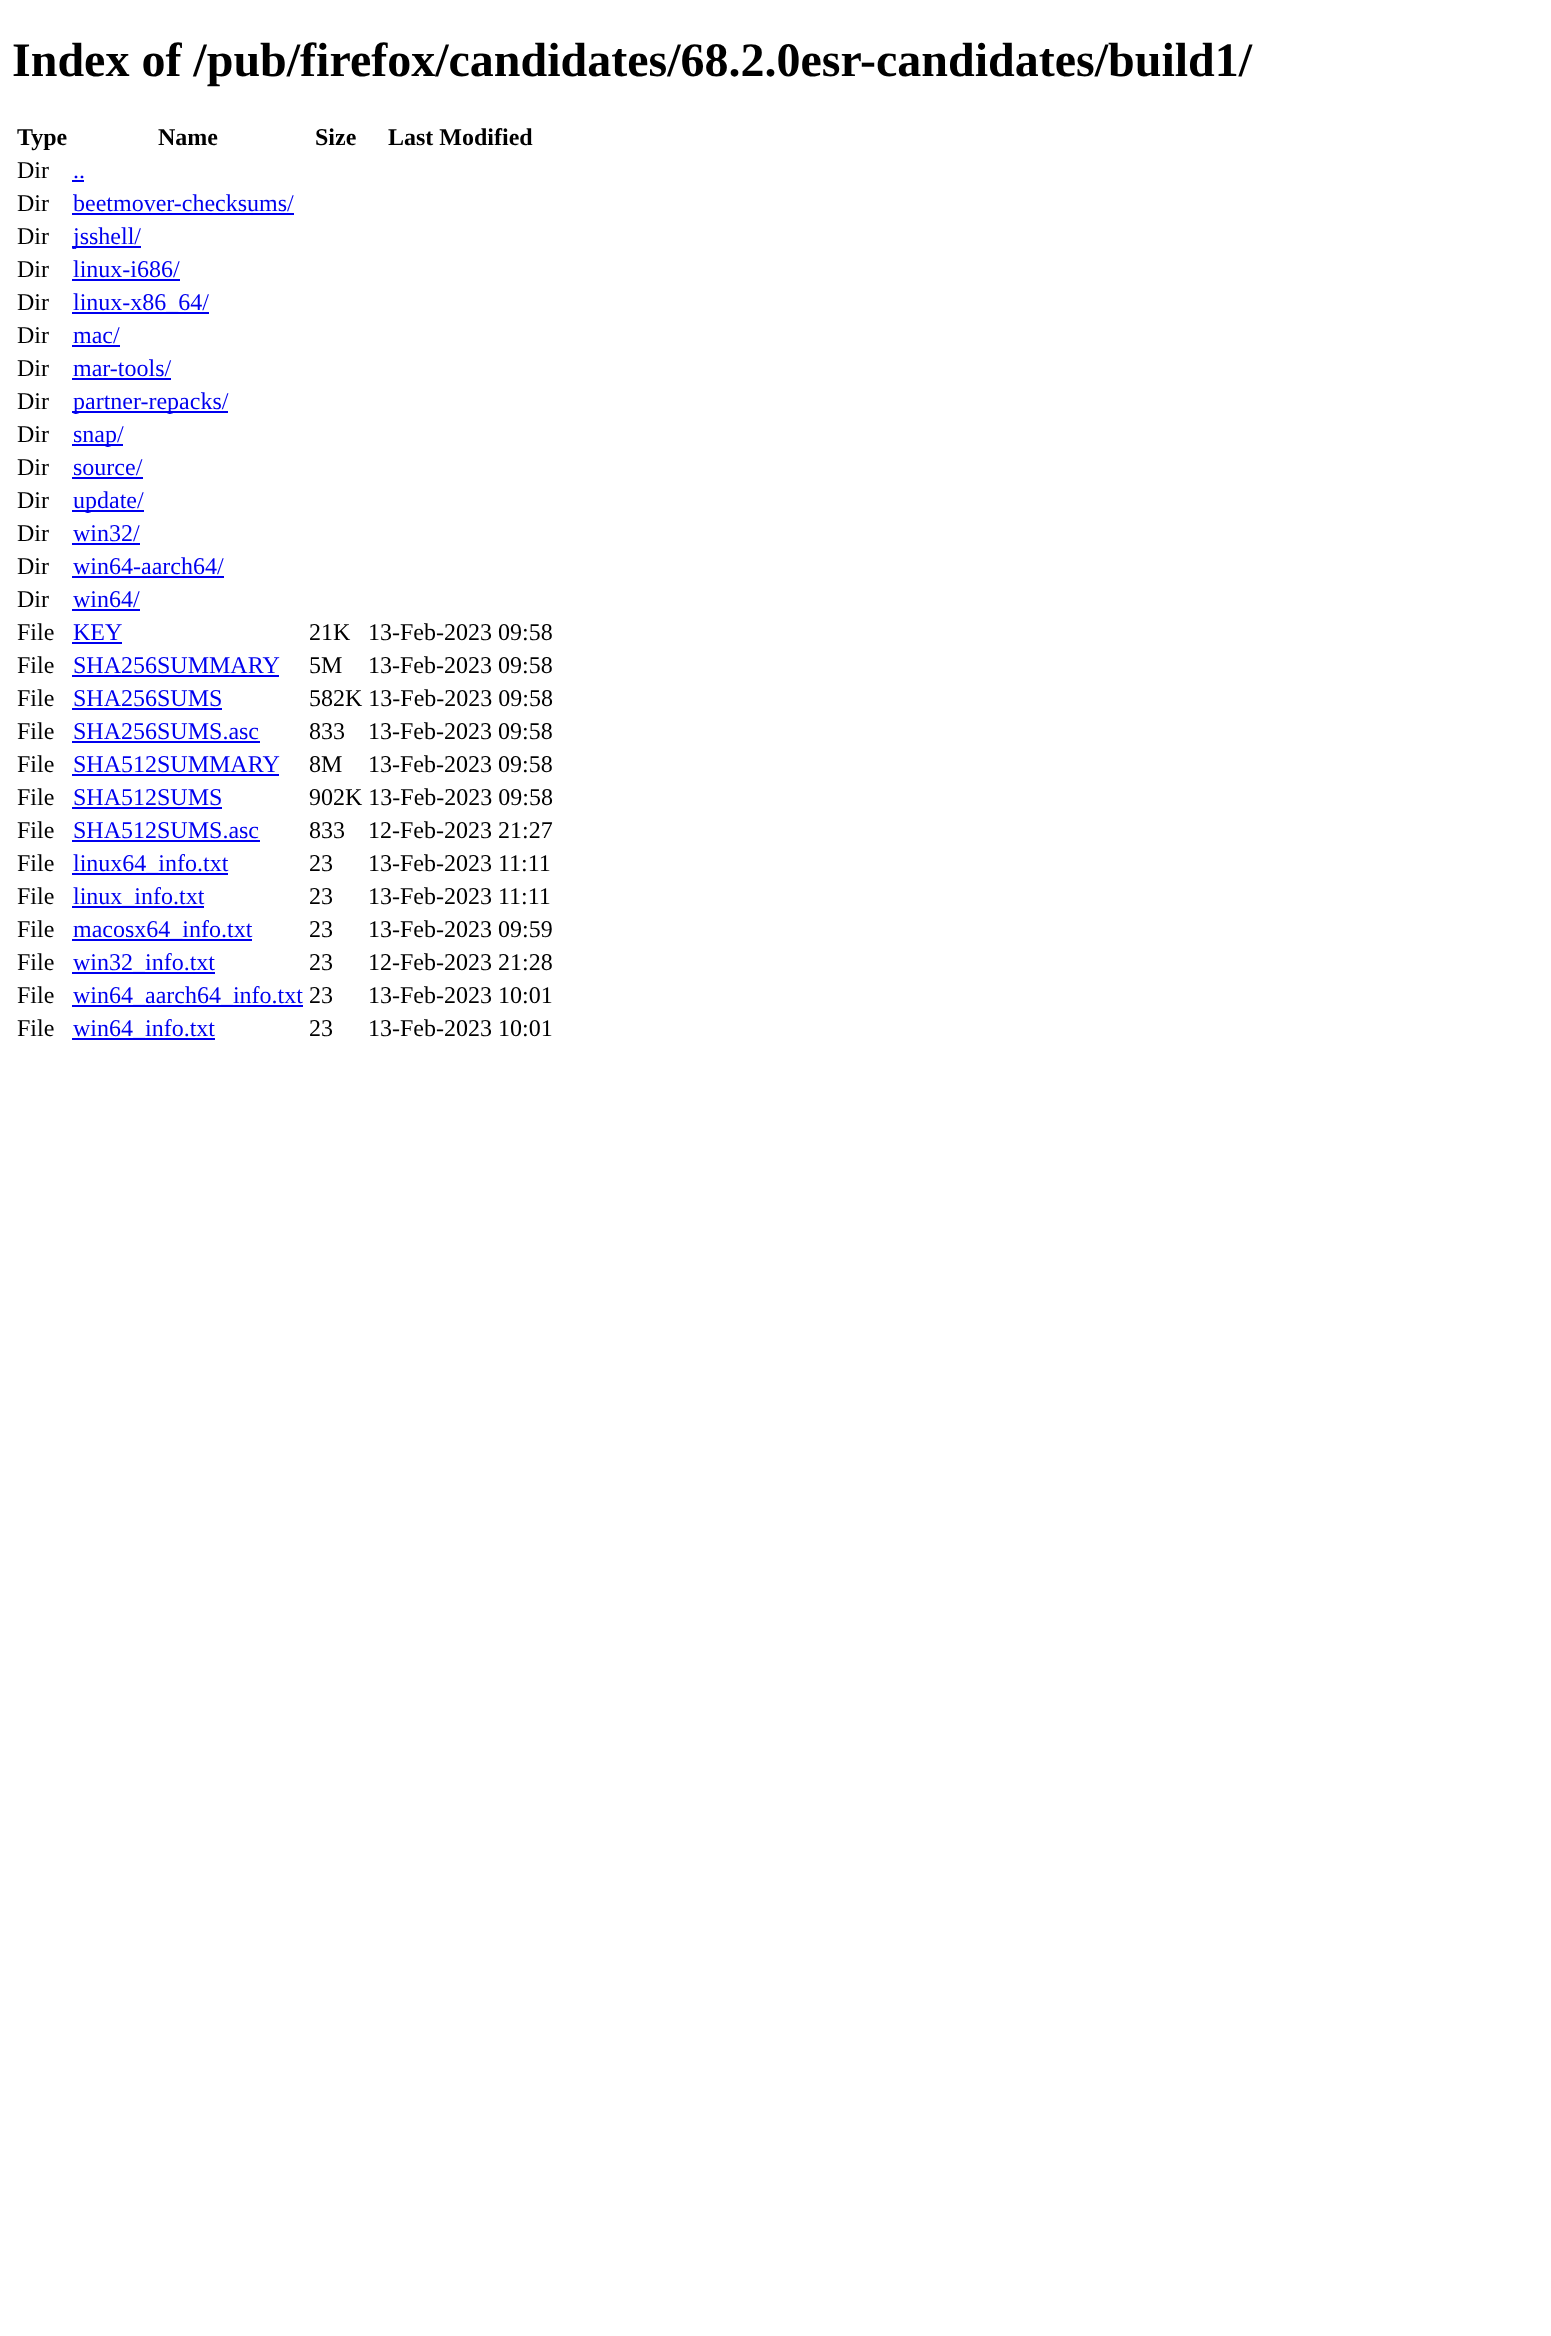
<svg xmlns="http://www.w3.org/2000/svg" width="1551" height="2336">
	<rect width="100%" height="100%" fill="#FFFFFF" />
	<text x="12" y="76" font-family="Liberation Serif" font-size="48" font-weight="700" fill="#000000">Index of /pub/firefox/candidates/68.2.0esr-candidates/build1/</text>
	<g font-family="Liberation Serif" font-size="24" font-weight="700" fill="#000000">
		<text x="17" y="145">Type</text>
		<text x="158" y="145">Name</text>
		<text x="315" y="145">Size</text>
		<text x="388" y="145">Last Modified</text>
	</g>
	<text x="17" y="178" font-family="Liberation Serif" font-size="24" fill="#000000">Dir</text>
	<text x="73" y="178" font-family="Liberation Serif" font-size="24" fill="#0000EE">..</text>
	<rect x="72" y="180" width="12" height="2" fill="#0000EE" />
	<text x="17" y="211" font-family="Liberation Serif" font-size="24" fill="#000000">Dir</text>
	<text x="73" y="211" font-family="Liberation Serif" font-size="24" fill="#0000EE">beetmover-checksums/</text>
	<rect x="72" y="213" width="222" height="2" fill="#0000EE" />
	<text x="17" y="244" font-family="Liberation Serif" font-size="24" fill="#000000">Dir</text>
	<rect x="72" y="246" width="69" height="2" fill="#0000EE" />
	<text x="73" y="244" font-family="Liberation Serif" font-size="24" fill="#0000EE">jsshell/</text>
	<text x="17" y="277" font-family="Liberation Serif" font-size="24" fill="#000000">Dir</text>
	<text x="73" y="277" font-family="Liberation Serif" font-size="24" fill="#0000EE">linux-i686/</text>
	<rect x="72" y="279" width="108" height="2" fill="#0000EE" />
	<text x="17" y="310" font-family="Liberation Serif" font-size="24" fill="#000000">Dir</text>
	<rect x="72" y="312" width="137" height="2" fill="#0000EE" />
	<text x="73" y="310" font-family="Liberation Serif" font-size="24" fill="#0000EE">linux-x86_64/</text>
	<text x="17" y="343" font-family="Liberation Serif" font-size="24" fill="#000000">Dir</text>
	<text x="73" y="343" font-family="Liberation Serif" font-size="24" fill="#0000EE">mac/</text>
	<rect x="72" y="345" width="48" height="2" fill="#0000EE" />
	<text x="17" y="376" font-family="Liberation Serif" font-size="24" fill="#000000">Dir</text>
	<text x="73" y="376" font-family="Liberation Serif" font-size="24" fill="#0000EE">mar-tools/</text>
	<rect x="72" y="378" width="99" height="2" fill="#0000EE" />
	<text x="17" y="409" font-family="Liberation Serif" font-size="24" fill="#000000">Dir</text>
	<rect x="72" y="411" width="156" height="2" fill="#0000EE" />
	<text x="73" y="409" font-family="Liberation Serif" font-size="24" fill="#0000EE">partner-repacks/</text>
	<text x="17" y="442" font-family="Liberation Serif" font-size="24" fill="#000000">Dir</text>
	<rect x="72" y="444" width="51" height="2" fill="#0000EE" />
	<text x="73" y="442" font-family="Liberation Serif" font-size="24" fill="#0000EE">snap/</text>
	<text x="17" y="475" font-family="Liberation Serif" font-size="24" fill="#000000">Dir</text>
	<text x="73" y="475" font-family="Liberation Serif" font-size="24" fill="#0000EE">source/</text>
	<rect x="72" y="477" width="71" height="2" fill="#0000EE" />
	<text x="17" y="508" font-family="Liberation Serif" font-size="24" fill="#000000">Dir</text>
	<rect x="72" y="510" width="72" height="2" fill="#0000EE" />
	<text x="73" y="508" font-family="Liberation Serif" font-size="24" fill="#0000EE">update/</text>
	<text x="17" y="541" font-family="Liberation Serif" font-size="24" fill="#000000">Dir</text>
	<text x="73" y="541" font-family="Liberation Serif" font-size="24" fill="#0000EE">win32/</text>
	<rect x="72" y="543" width="68" height="2" fill="#0000EE" />
	<text x="17" y="574" font-family="Liberation Serif" font-size="24" fill="#000000">Dir</text>
	<text x="73" y="574" font-family="Liberation Serif" font-size="24" fill="#0000EE">win64-aarch64/</text>
	<rect x="72" y="576" width="152" height="2" fill="#0000EE" />
	<text x="17" y="607" font-family="Liberation Serif" font-size="24" fill="#000000">Dir</text>
	<text x="73" y="607" font-family="Liberation Serif" font-size="24" fill="#0000EE">win64/</text>
	<rect x="72" y="609" width="68" height="2" fill="#0000EE" />
	<text x="17" y="640" font-family="Liberation Serif" font-size="24" fill="#000000">File</text>
	<text x="73" y="640" font-family="Liberation Serif" font-size="24" fill="#0000EE">KEY</text>
	<rect x="72" y="642" width="50" height="2" fill="#0000EE" />
	<g font-family="Liberation Serif" font-size="24" fill="#000000">
		<text x="309" y="640">21K</text>
		<text x="368" y="640">13-Feb-2023 09:58</text>
		<text x="17" y="673">File</text>
	</g>
	<text x="73" y="673" font-family="Liberation Serif" font-size="24" fill="#0000EE">SHA256SUMMARY</text>
	<rect x="72" y="675" width="207" height="2" fill="#0000EE" />
	<g font-family="Liberation Serif" font-size="24" fill="#000000">
		<text x="309" y="673">5M</text>
		<text x="368" y="673">13-Feb-2023 09:58</text>
		<text x="17" y="706">File</text>
	</g>
	<text x="73" y="706" font-family="Liberation Serif" font-size="24" fill="#0000EE">SHA256SUMS</text>
	<rect x="72" y="708" width="150" height="2" fill="#0000EE" />
	<g font-family="Liberation Serif" font-size="24" fill="#000000">
		<text x="309" y="706">582K 13-Feb-2023 09:58</text>
		<text x="17" y="739">File</text>
	</g>
	<text x="73" y="739" font-family="Liberation Serif" font-size="24" fill="#0000EE">SHA256SUMS.asc</text>
	<rect x="72" y="741" width="188" height="2" fill="#0000EE" />
	<g font-family="Liberation Serif" font-size="24" fill="#000000">
		<text x="309" y="739">833</text>
		<text x="368" y="739">13-Feb-2023 09:58</text>
		<text x="17" y="772">File</text>
	</g>
	<text x="73" y="772" font-family="Liberation Serif" font-size="24" fill="#0000EE">SHA512SUMMARY</text>
	<rect x="72" y="774" width="207" height="2" fill="#0000EE" />
	<g font-family="Liberation Serif" font-size="24" fill="#000000">
		<text x="309" y="772">8M</text>
		<text x="368" y="772">13-Feb-2023 09:58</text>
		<text x="17" y="805">File</text>
	</g>
	<text x="73" y="805" font-family="Liberation Serif" font-size="24" fill="#0000EE">SHA512SUMS</text>
	<rect x="72" y="807" width="150" height="2" fill="#0000EE" />
	<g font-family="Liberation Serif" font-size="24" fill="#000000">
		<text x="309" y="805">902K 13-Feb-2023 09:58</text>
		<text x="17" y="838">File</text>
	</g>
	<text x="73" y="838" font-family="Liberation Serif" font-size="24" fill="#0000EE">SHA512SUMS.asc</text>
	<rect x="72" y="840" width="188" height="2" fill="#0000EE" />
	<g font-family="Liberation Serif" font-size="24" fill="#000000">
		<text x="309" y="838">833</text>
		<text x="368" y="838">12-Feb-2023 21:27</text>
		<text x="17" y="871">File</text>
	</g>
	<rect x="72" y="873" width="156" height="2" fill="#0000EE" />
	<text x="73" y="871" font-family="Liberation Serif" font-size="24" fill="#0000EE">linux64_info.txt</text>
	<g font-family="Liberation Serif" font-size="24" fill="#000000">
		<text x="309" y="871">23</text>
		<text x="368" y="871">13-Feb-2023 11:11</text>
		<text x="17" y="904">File</text>
	</g>
	<rect x="72" y="906" width="132" height="2" fill="#0000EE" />
	<text x="73" y="904" font-family="Liberation Serif" font-size="24" fill="#0000EE">linux_info.txt</text>
	<g font-family="Liberation Serif" font-size="24" fill="#000000">
		<text x="309" y="904">23</text>
		<text x="368" y="904">13-Feb-2023 11:11</text>
		<text x="17" y="937">File</text>
	</g>
	<rect x="72" y="939" width="180" height="2" fill="#0000EE" />
	<text x="73" y="937" font-family="Liberation Serif" font-size="24" fill="#0000EE">macosx64_info.txt</text>
	<g font-family="Liberation Serif" font-size="24" fill="#000000">
		<text x="309" y="937">23</text>
		<text x="368" y="937">13-Feb-2023 09:59</text>
		<text x="17" y="970">File</text>
	</g>
	<rect x="72" y="972" width="143" height="2" fill="#0000EE" />
	<text x="73" y="970" font-family="Liberation Serif" font-size="24" fill="#0000EE">win32_info.txt</text>
	<g font-family="Liberation Serif" font-size="24" fill="#000000">
		<text x="309" y="970">23</text>
		<text x="368" y="970">12-Feb-2023 21:28</text>
		<text x="17" y="1003">File</text>
	</g>
	<rect x="72" y="1005" width="231" height="2" fill="#0000EE" />
	<text x="73" y="1003" font-family="Liberation Serif" font-size="24" fill="#0000EE">win64_aarch64_info.txt</text>
	<g font-family="Liberation Serif" font-size="24" fill="#000000">
		<text x="309" y="1003">23</text>
		<text x="368" y="1003">13-Feb-2023 10:01</text>
		<text x="17" y="1036">File</text>
	</g>
	<rect x="72" y="1038" width="143" height="2" fill="#0000EE" />
	<text x="73" y="1036" font-family="Liberation Serif" font-size="24" fill="#0000EE">win64_info.txt</text>
	<g font-family="Liberation Serif" font-size="24" fill="#000000">
		<text x="309" y="1036">23</text>
		<text x="368" y="1036">13-Feb-2023 10:01</text>
	</g>
</svg>
